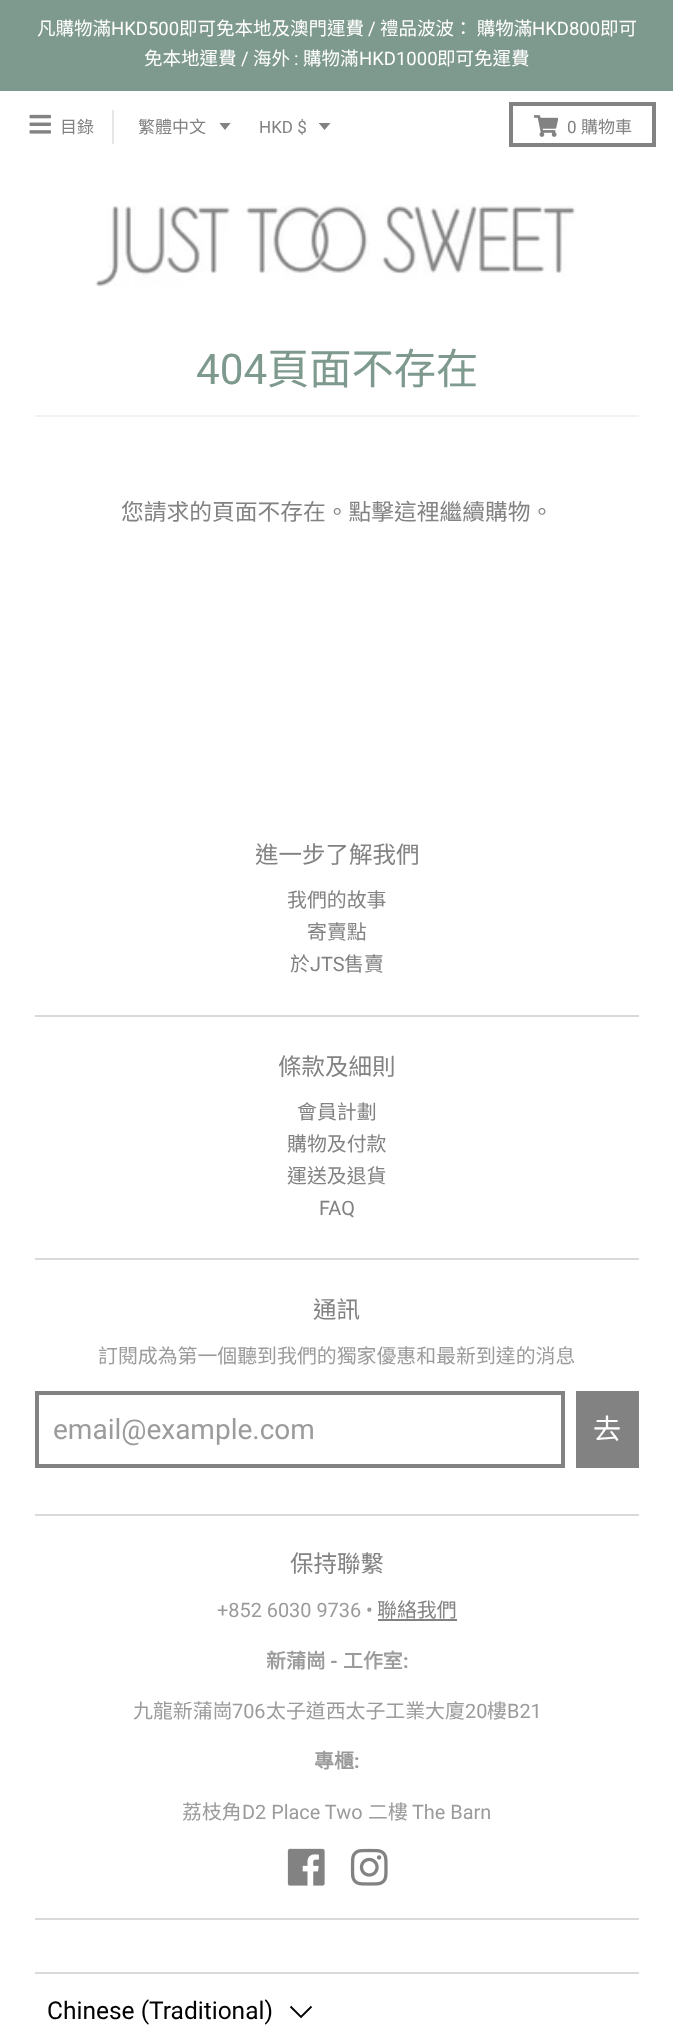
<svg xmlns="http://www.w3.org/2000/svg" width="673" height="2030">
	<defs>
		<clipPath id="clip1"><rect x="219" y="123" width="14" height="8" /></clipPath>
		<clipPath id="clip2"><rect x="319" y="123" width="14" height="8" /></clipPath>
	</defs>
	<rect width="100%" height="100%" fill="#FFFFFF" />
	<rect x="0" y="0" width="673" height="91" fill="#7E998D" />
	<text x="37" y="35" font-family="Noto Sans CJK TC" font-size="18.5" fill="#FFFFFF">凡購物滿</text>
	<text x="111" y="35" font-family="Roboto" font-size="18.5" fill="#FFFFFF">HKD500</text>
	<text x="179" y="35" font-family="Noto Sans CJK TC" font-size="18.5" fill="#FFFFFF">即可免本地及澳門運費</text>
	<text x="368" y="35" font-family="Roboto" font-size="18.5" fill="#FFFFFF">/</text>
	<text x="380" y="35" font-family="Noto Sans CJK TC" font-size="18.5" fill="#FFFFFF">禮品波波： 購物滿</text>
	<text x="532" y="35" font-family="Roboto" font-size="18.5" fill="#FFFFFF">HKD800</text>
	<g font-family="Noto Sans CJK TC" font-size="18.5" fill="#FFFFFF">
		<text x="600" y="35">即可</text>
		<text x="144" y="65">免本地運費</text>
	</g>
	<text x="241" y="65" font-family="Roboto" font-size="18.5" fill="#FFFFFF">/</text>
	<text x="253" y="65" font-family="Noto Sans CJK TC" font-size="18.5" fill="#FFFFFF">海外</text>
	<text x="294" y="65" font-family="Roboto" font-size="18.5" fill="#FFFFFF">:</text>
	<text x="303" y="65" font-family="Noto Sans CJK TC" font-size="18.5" fill="#FFFFFF">購物滿</text>
	<text x="359" y="65" font-family="Roboto" font-size="18.5" fill="#FFFFFF">HKD1000</text>
	<text x="437" y="65" font-family="Noto Sans CJK TC" font-size="18.5" fill="#FFFFFF">即可免運費</text>
	<image x="29" y="114" width="22" height="20" href="assets/img1.png" />
	<text x="60" y="133" font-family="Noto Sans CJK TC" font-size="17" fill="#828282">目錄</text>
	<rect x="112" y="110" width="2" height="34" fill="#E6E6E6" />
	<g clip-path="url(#clip1)">
		<path d="M219 122.5L225 130L231 122.5Z" fill="#828282" />
	</g>
	<text x="138" y="133" font-family="Noto Sans CJK TC" font-size="17" fill="#828282">繁體中文</text>
	<g clip-path="url(#clip2)">
		<path d="M318.5 122.5L324.5 130L331 122.5Z" fill="#828282" />
	</g>
	<text x="259" y="133" font-family="Roboto" font-size="17" fill="#828282">HKD $</text>
	<rect x="511" y="104" width="143" height="41" fill="none" stroke="#828282" stroke-width="4" />
	<image x="534" y="115" width="24" height="22" href="assets/img2.png" />
	<text x="567" y="133" font-family="Roboto" font-size="17" fill="#828282">0</text>
	<text x="581" y="133" font-family="Noto Sans CJK TC" font-size="17" fill="#828282">購物車</text>
	<image x="95" y="205" width="481" height="82" href="assets/img3.png" />
	<rect x="35" y="415" width="604" height="2" fill="#F2F2F2" />
	<text x="196" y="384" font-family="Roboto" font-size="42.25" fill="#7E998D">404</text>
	<text x="267" y="384" font-family="Noto Sans CJK TC" font-size="42.25" fill="#7E998D">頁面不存在</text>
	<text x="121" y="520" font-family="Noto Sans CJK TC" font-size="22.75" fill="#828282">您請求的頁面不存在。點擊這裡繼續購物。</text>
	<text x="255" y="863" font-family="Noto Sans CJK TC" font-size="23.5" fill="#828282">進一步了解我們</text>
	<rect x="35" y="1015" width="604" height="2" fill="#D9D9D9" />
	<g font-family="Noto Sans CJK TC" font-size="19.9" fill="#828282">
		<text x="287" y="907">我們的故事</text>
		<text x="307" y="939">寄賣點</text>
		<text x="290" y="971">於</text>
	</g>
	<text x="310" y="971" font-family="Roboto" font-size="19.9" fill="#828282">JTS</text>
	<text x="344" y="971" font-family="Noto Sans CJK TC" font-size="19.9" fill="#828282">售賣</text>
	<text x="278" y="1075" font-family="Noto Sans CJK TC" font-size="23.5" fill="#828282">條款及細則</text>
	<rect x="35" y="1258" width="604" height="2" fill="#D9D9D9" />
	<g font-family="Noto Sans CJK TC" font-size="19.9" fill="#828282">
		<text x="297" y="1119">會員計劃</text>
		<text x="287" y="1151">購物及付款</text>
		<text x="287" y="1183">運送及退貨</text>
	</g>
	<text x="319" y="1215" font-family="Roboto" font-size="19.9" fill="#828282">FAQ</text>
	<text x="313" y="1318" font-family="Noto Sans CJK TC" font-size="23.5" fill="#828282">通訊</text>
	<text x="98" y="1363" font-family="Noto Sans CJK TC" font-size="19.9" fill="#9B9B9B">訂閱成為第一個聽到我們的獨家優惠和最新到達的消息</text>
	<rect x="35" y="1514" width="604" height="2" fill="#D9D9D9" />
	<rect x="37" y="1393" width="526" height="73" fill="none" stroke="#828282" stroke-width="4" />
	<text x="53" y="1439" font-family="Roboto" font-size="28" fill="#9B9B9B">email@example.com</text>
	<rect x="576" y="1391" width="63" height="77" fill="#828282" />
	<text x="593" y="1439" font-family="Noto Sans CJK TC" font-size="28" fill="#FFFFFF">去</text>
	<text x="290" y="1572" font-family="Noto Sans CJK TC" font-size="23.5" fill="#828282">保持聯繫</text>
	<text x="217" y="1617" font-family="Roboto" font-size="19.9" fill="#9B9B9B">+852 6030 9736 •</text>
	<text x="377" y="1617" font-family="Noto Sans CJK TC" font-size="19.9" fill="#828282">聯絡我們</text>
	<rect x="378" y="1619" width="79" height="2" fill="#828282" />
	<text x="266" y="1668" font-family="Noto Sans CJK TC" font-size="19.9" font-weight="700" fill="#9B9B9B">新蒲崗</text>
	<text x="330" y="1668" font-family="Roboto" font-size="19.9" font-weight="700" fill="#9B9B9B">-</text>
	<text x="343" y="1668" font-family="Noto Sans CJK TC" font-size="19.9" font-weight="700" fill="#9B9B9B">工作室</text>
	<text x="403" y="1668" font-family="Roboto" font-size="19.9" font-weight="700" fill="#9B9B9B">:</text>
	<text x="133" y="1718" font-family="Noto Sans CJK TC" font-size="19.9" fill="#9B9B9B">九龍新蒲崗</text>
	<text x="232" y="1718" font-family="Roboto" font-size="19.9" fill="#9B9B9B">706</text>
	<text x="266" y="1718" font-family="Noto Sans CJK TC" font-size="19.9" fill="#9B9B9B">太子道西太子工業大廈</text>
	<text x="465" y="1718" font-family="Roboto" font-size="19.9" fill="#9B9B9B">20</text>
	<text x="487" y="1718" font-family="Noto Sans CJK TC" font-size="19.9" fill="#9B9B9B">樓</text>
	<text x="507" y="1718" font-family="Roboto" font-size="19.9" fill="#9B9B9B">B21</text>
	<text x="314" y="1768" font-family="Noto Sans CJK TC" font-size="19.9" font-weight="700" fill="#9B9B9B">專櫃</text>
	<text x="354" y="1768" font-family="Roboto" font-size="19.9" font-weight="700" fill="#9B9B9B">:</text>
	<text x="182" y="1819" font-family="Noto Sans CJK TC" font-size="19.9" fill="#9B9B9B">荔枝角</text>
	<text x="242" y="1819" font-family="Roboto" font-size="19.9" fill="#9B9B9B">D2 Place Two</text>
	<text x="368" y="1819" font-family="Noto Sans CJK TC" font-size="19.9" fill="#9B9B9B">二樓</text>
	<text x="412" y="1819" font-family="Roboto" font-size="19.9" fill="#9B9B9B">The Barn</text>
	<image x="287" y="1848" width="38" height="38" href="assets/img4.png" />
	<image x="350" y="1848" width="38" height="38" href="assets/img5.png" />
	<rect x="35" y="1918" width="604" height="2" fill="#D9D9D9" />
	<rect x="35" y="1972" width="604" height="2" fill="#D9D9D9" />
	<text x="47" y="2019" font-family="Roboto" font-size="24.5" fill="#000000">Chinese (Traditional)</text>
	<path d="M290.5 2006.5L301 2017L311.5 2006.5" fill="none" stroke="#000000" stroke-width="1.8" />
</svg>
